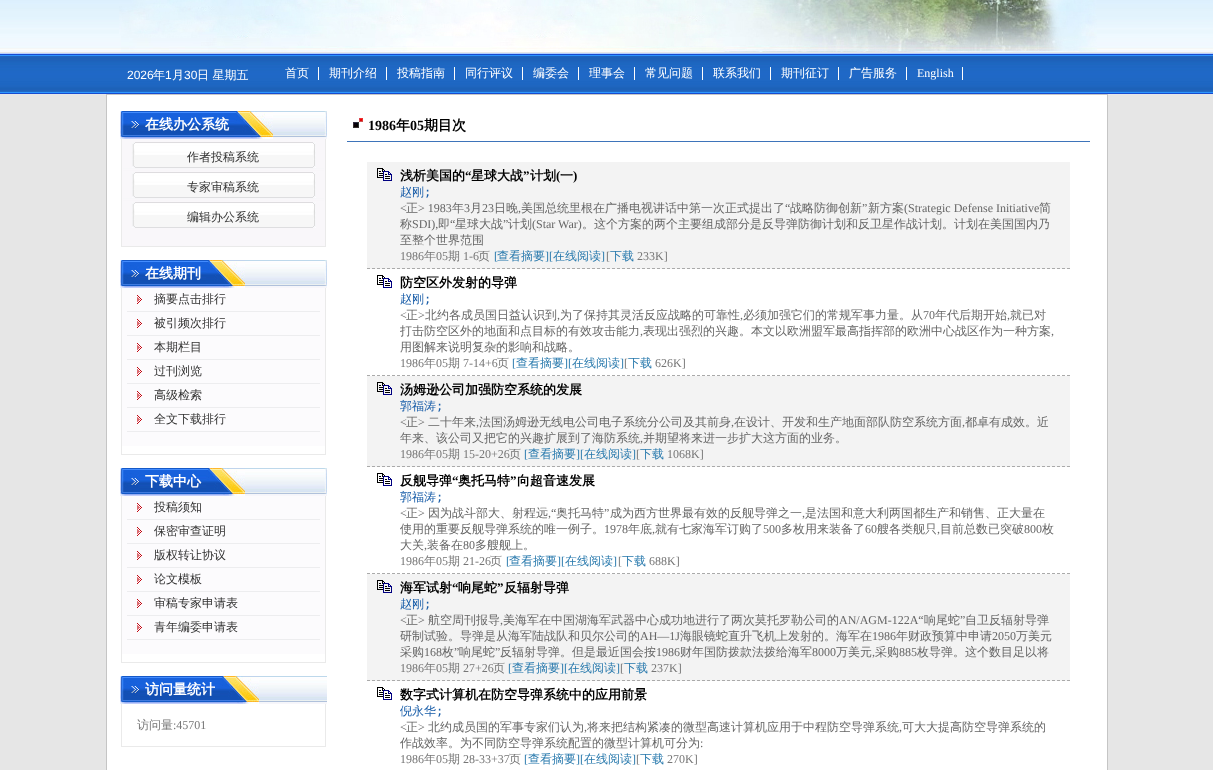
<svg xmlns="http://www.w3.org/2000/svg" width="1213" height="770">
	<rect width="100%" height="100%" fill="#E6E6E6" />
	<image x="0" y="0" width="1213" height="52" href="assets/img1.png" />
	<image x="119" y="0" width="978" height="52" href="assets/img2.png" />
	<image x="0" y="53" width="1213" height="41" href="assets/img3.png" />
	<text x="127" y="79" font-family="Liberation Sans" font-size="12" fill="#FFFFFF">2026</text>
	<text x="153" y="79" font-family="WenQuanYi Zen Hei" font-size="12" font-weight="500" fill="#FFFFFF">年</text>
	<text x="165" y="79" font-family="Liberation Sans" font-size="12" fill="#FFFFFF">1</text>
	<text x="172" y="79" font-family="WenQuanYi Zen Hei" font-size="12" font-weight="500" fill="#FFFFFF">月</text>
	<text x="184" y="79" font-family="Liberation Sans" font-size="12" fill="#FFFFFF">30</text>
	<text x="197" y="79" font-family="WenQuanYi Zen Hei" font-size="12" font-weight="500" fill="#FFFFFF">日 星期五</text>
	<image x="318" y="67" width="1" height="13" href="assets/img4.png" />
	<text x="285" y="77" font-family="WenQuanYi Zen Hei" font-size="12" font-weight="500" fill="#FFFFFF">首页</text>
	<image x="386" y="67" width="1" height="13" href="assets/img4.png" />
	<text x="329" y="77" font-family="WenQuanYi Zen Hei" font-size="12" font-weight="500" fill="#FFFFFF">期刊介绍</text>
	<image x="454" y="67" width="1" height="13" href="assets/img4.png" />
	<text x="397" y="77" font-family="WenQuanYi Zen Hei" font-size="12" font-weight="500" fill="#FFFFFF">投稿指南</text>
	<image x="522" y="67" width="1" height="13" href="assets/img4.png" />
	<text x="465" y="77" font-family="WenQuanYi Zen Hei" font-size="12" font-weight="500" fill="#FFFFFF">同行评议</text>
	<image x="578" y="67" width="1" height="13" href="assets/img4.png" />
	<text x="533" y="77" font-family="WenQuanYi Zen Hei" font-size="12" font-weight="500" fill="#FFFFFF">编委会</text>
	<image x="634" y="67" width="1" height="13" href="assets/img4.png" />
	<text x="589" y="77" font-family="WenQuanYi Zen Hei" font-size="12" font-weight="500" fill="#FFFFFF">理事会</text>
	<image x="702" y="67" width="1" height="13" href="assets/img4.png" />
	<text x="645" y="77" font-family="WenQuanYi Zen Hei" font-size="12" font-weight="500" fill="#FFFFFF">常见问题</text>
	<image x="770" y="67" width="1" height="13" href="assets/img4.png" />
	<text x="713" y="77" font-family="WenQuanYi Zen Hei" font-size="12" font-weight="500" fill="#FFFFFF">联系我们</text>
	<image x="838" y="67" width="1" height="13" href="assets/img4.png" />
	<text x="781" y="77" font-family="WenQuanYi Zen Hei" font-size="12" font-weight="500" fill="#FFFFFF">期刊征订</text>
	<image x="906" y="67" width="1" height="13" href="assets/img4.png" />
	<text x="849" y="77" font-family="WenQuanYi Zen Hei" font-size="12" font-weight="500" fill="#FFFFFF">广告服务</text>
	<image x="962" y="67" width="1" height="13" href="assets/img4.png" />
	<text x="917" y="77" font-family="Liberation Serif" font-size="12" fill="#FFFFFF">English</text>
	<rect x="106.5" y="94.5" width="1001" height="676" fill="#FFFFFF" stroke="#C5C5C5" />
	<image x="273" y="111" width="54" height="28" href="assets/img5.png" />
	<image x="139" y="111" width="95" height="28" href="assets/img6.png" />
	<image x="120" y="111" width="19" height="28" href="assets/img7.png" />
	<text x="145" y="129" font-family="WenQuanYi Zen Hei" font-size="14" font-weight="700" fill="#FFFFFF">在线办公系统</text>
	<image x="234" y="111" width="39" height="28" href="assets/img8.png" />
	<image x="324" y="111" width="3" height="26" href="assets/img9.png" />
	<rect x="122" y="139" width="203" height="107" fill="#F9F7FA" />
	<rect x="325" y="139" width="1" height="108" fill="#EAEAEA" />
	<rect x="121" y="246" width="205" height="1" fill="#EAEAEA" />
	<rect x="121" y="139" width="1" height="108" fill="#EAEAEA" />
	<image x="123" y="142" width="201" height="86" href="assets/img10.png" />
	<image x="123" y="142" width="12" height="26" href="assets/img11.png" />
	<image x="313" y="142" width="11" height="26" href="assets/img12.png" />
	<text x="187" y="161" font-family="WenQuanYi Zen Hei" font-size="12" font-weight="500" fill="#323232">作者投稿系统</text>
	<image x="123" y="172" width="12" height="26" href="assets/img11.png" />
	<image x="313" y="172" width="11" height="26" href="assets/img12.png" />
	<text x="187" y="191" font-family="WenQuanYi Zen Hei" font-size="12" font-weight="500" fill="#323232">专家审稿系统</text>
	<image x="123" y="202" width="12" height="26" href="assets/img11.png" />
	<image x="313" y="202" width="11" height="26" href="assets/img12.png" />
	<text x="187" y="221" font-family="WenQuanYi Zen Hei" font-size="12" font-weight="500" fill="#323232">编辑办公系统</text>
	<image x="245" y="260" width="82" height="28" href="assets/img13.png" />
	<image x="139" y="260" width="67" height="28" href="assets/img14.png" />
	<image x="120" y="260" width="19" height="28" href="assets/img7.png" />
	<text x="145" y="278" font-family="WenQuanYi Zen Hei" font-size="14" font-weight="700" fill="#FFFFFF">在线期刊</text>
	<image x="206" y="260" width="39" height="28" href="assets/img8.png" />
	<image x="324" y="260" width="3" height="26" href="assets/img9.png" />
	<rect x="325" y="288" width="1" height="167" fill="#EAEAEA" />
	<rect x="121" y="454" width="205" height="1" fill="#EAEAEA" />
	<rect x="121" y="288" width="1" height="167" fill="#EAEAEA" />
	<rect x="122" y="288" width="203" height="158" fill="#FCFBFD" />
	<rect x="127" y="311" width="193" height="1" fill="#EDEDEF" />
	<image x="137" y="295" width="5" height="9" href="assets/img15.png" />
	<text x="154" y="303" font-family="WenQuanYi Zen Hei" font-size="12" font-weight="500" fill="#323232">摘要点击排行</text>
	<rect x="127" y="335" width="193" height="1" fill="#EDEDEF" />
	<image x="137" y="319" width="5" height="9" href="assets/img15.png" />
	<text x="154" y="327" font-family="WenQuanYi Zen Hei" font-size="12" font-weight="500" fill="#323232">被引频次排行</text>
	<rect x="127" y="359" width="193" height="1" fill="#EDEDEF" />
	<image x="137" y="343" width="5" height="9" href="assets/img15.png" />
	<text x="154" y="351" font-family="WenQuanYi Zen Hei" font-size="12" font-weight="500" fill="#323232">本期栏目</text>
	<rect x="127" y="383" width="193" height="1" fill="#EDEDEF" />
	<image x="137" y="367" width="5" height="9" href="assets/img15.png" />
	<text x="154" y="375" font-family="WenQuanYi Zen Hei" font-size="12" font-weight="500" fill="#323232">过刊浏览</text>
	<rect x="127" y="407" width="193" height="1" fill="#EDEDEF" />
	<image x="137" y="391" width="5" height="9" href="assets/img15.png" />
	<text x="154" y="399" font-family="WenQuanYi Zen Hei" font-size="12" font-weight="500" fill="#323232">高级检索</text>
	<rect x="127" y="431" width="193" height="1" fill="#EDEDEF" />
	<image x="137" y="415" width="5" height="9" href="assets/img15.png" />
	<text x="154" y="423" font-family="WenQuanYi Zen Hei" font-size="12" font-weight="500" fill="#323232">全文下载排行</text>
	<image x="245" y="468" width="82" height="28" href="assets/img13.png" />
	<image x="139" y="468" width="67" height="28" href="assets/img14.png" />
	<image x="120" y="468" width="19" height="28" href="assets/img7.png" />
	<text x="145" y="486" font-family="WenQuanYi Zen Hei" font-size="14" font-weight="700" fill="#FFFFFF">下载中心</text>
	<image x="206" y="468" width="39" height="28" href="assets/img8.png" />
	<image x="324" y="468" width="3" height="26" href="assets/img9.png" />
	<rect x="325" y="496" width="1" height="167" fill="#EAEAEA" />
	<rect x="121" y="662" width="205" height="1" fill="#EAEAEA" />
	<rect x="121" y="496" width="1" height="167" fill="#EAEAEA" />
	<rect x="122" y="496" width="203" height="158" fill="#FCFBFD" />
	<rect x="127" y="519" width="193" height="1" fill="#EDEDEF" />
	<image x="137" y="503" width="5" height="9" href="assets/img15.png" />
	<text x="154" y="511" font-family="WenQuanYi Zen Hei" font-size="12" font-weight="500" fill="#323232">投稿须知</text>
	<rect x="127" y="543" width="193" height="1" fill="#EDEDEF" />
	<image x="137" y="527" width="5" height="9" href="assets/img15.png" />
	<text x="154" y="535" font-family="WenQuanYi Zen Hei" font-size="12" font-weight="500" fill="#323232">保密审查证明</text>
	<rect x="127" y="567" width="193" height="1" fill="#EDEDEF" />
	<image x="137" y="551" width="5" height="9" href="assets/img15.png" />
	<text x="154" y="559" font-family="WenQuanYi Zen Hei" font-size="12" font-weight="500" fill="#323232">版权转让协议</text>
	<rect x="127" y="591" width="193" height="1" fill="#EDEDEF" />
	<image x="137" y="575" width="5" height="9" href="assets/img15.png" />
	<text x="154" y="583" font-family="WenQuanYi Zen Hei" font-size="12" font-weight="500" fill="#323232">论文模板</text>
	<rect x="127" y="615" width="193" height="1" fill="#EDEDEF" />
	<image x="137" y="599" width="5" height="9" href="assets/img15.png" />
	<text x="154" y="607" font-family="WenQuanYi Zen Hei" font-size="12" font-weight="500" fill="#323232">审稿专家申请表</text>
	<rect x="127" y="639" width="193" height="1" fill="#EDEDEF" />
	<image x="137" y="623" width="5" height="9" href="assets/img15.png" />
	<text x="154" y="631" font-family="WenQuanYi Zen Hei" font-size="12" font-weight="500" fill="#323232">青年编委申请表</text>
	<image x="259" y="676" width="68" height="28" href="assets/img16.png" />
	<image x="139" y="676" width="81" height="28" href="assets/img17.png" />
	<image x="120" y="676" width="19" height="28" href="assets/img7.png" />
	<text x="145" y="694" font-family="WenQuanYi Zen Hei" font-size="14" font-weight="700" fill="#FFFFFF">访问量统计</text>
	<image x="220" y="676" width="39" height="28" href="assets/img8.png" />
	<rect x="325" y="704" width="1" height="43" fill="#EAEAEA" />
	<rect x="121" y="746" width="205" height="1" fill="#EAEAEA" />
	<rect x="121" y="704" width="1" height="43" fill="#EAEAEA" />
	<text x="137" y="729" font-family="WenQuanYi Zen Hei" font-size="12" font-weight="500" fill="#767676">访问量</text>
	<text x="173" y="729" font-family="Liberation Serif" font-size="12" fill="#767676">:45701</text>
	<rect x="347" y="141" width="743" height="1" fill="#3E74BA" />
	<image x="353" y="118" width="10" height="10" href="assets/img18.png" />
	<text x="368" y="130" font-family="Liberation Serif" font-size="14" font-weight="700" fill="#000000">1986</text>
	<text x="396" y="130" font-family="WenQuanYi Zen Hei" font-size="14" font-weight="700" fill="#000000">年</text>
	<text x="410" y="130" font-family="Liberation Serif" font-size="14" font-weight="700" fill="#000000">05</text>
	<text x="424" y="130" font-family="WenQuanYi Zen Hei" font-size="14" font-weight="700" fill="#000000">期目次</text>
	<rect x="367" y="162" width="703" height="107" fill="#F3F3F3" />
	<image x="377" y="168" width="15" height="13" href="assets/img19.png" />
	<path d="M367 268.5H1070" fill="none" stroke="#AAAAAA" stroke-dasharray="3 2" />
	<text x="400" y="180" font-family="WenQuanYi Zen Hei" font-size="13" font-weight="700" fill="#000000">浅析美国的</text>
	<text x="465" y="180" font-family="Liberation Serif" font-size="13" font-weight="700" fill="#000000">“</text>
	<text x="471" y="180" font-family="WenQuanYi Zen Hei" font-size="13" font-weight="700" fill="#000000">星球大战</text>
	<text x="523" y="180" font-family="Liberation Serif" font-size="13" font-weight="700" fill="#000000">”</text>
	<text x="530" y="180" font-family="WenQuanYi Zen Hei" font-size="13" font-weight="700" fill="#000000">计划</text>
	<text x="556" y="180" font-family="Liberation Serif" font-size="13" font-weight="700" fill="#000000">(</text>
	<text x="560" y="180" font-family="WenQuanYi Zen Hei" font-size="13" font-weight="700" fill="#000000">一</text>
	<text x="573" y="180" font-family="Liberation Serif" font-size="13" font-weight="700" fill="#000000">)</text>
	<text x="400" y="196" font-family="WenQuanYi Zen Hei" font-size="12" font-weight="500" fill="#175CA8">赵刚</text>
	<text x="424" y="196" font-family="DejaVu Sans Mono" font-size="12" fill="#175CA8">;</text>
	<text x="400" y="212" font-family="Liberation Serif" font-size="12" fill="#666666">&lt;</text>
	<text x="406" y="212" font-family="WenQuanYi Zen Hei" font-size="12" font-weight="500" fill="#666666">正</text>
	<text x="418" y="212" font-family="Liberation Serif" font-size="12" fill="#666666">&gt; 1983</text>
	<text x="452" y="212" font-family="WenQuanYi Zen Hei" font-size="12" font-weight="500" fill="#666666">年</text>
	<text x="464" y="212" font-family="Liberation Serif" font-size="12" fill="#666666">3</text>
	<text x="470" y="212" font-family="WenQuanYi Zen Hei" font-size="12" font-weight="500" fill="#666666">月</text>
	<text x="482" y="212" font-family="Liberation Serif" font-size="12" fill="#666666">23</text>
	<g font-family="WenQuanYi Zen Hei" font-size="12" font-weight="500" fill="#666666">
		<text x="494" y="212">日晚</text>
		<text x="521" y="212">美国总统里根在广播电视讲话中第一次正式提出了</text>
	</g>
	<text x="785" y="212" font-family="Liberation Serif" font-size="12" fill="#666666">“</text>
	<text x="790" y="212" font-family="WenQuanYi Zen Hei" font-size="12" font-weight="500" fill="#666666">战略防御创新</text>
	<text x="862" y="212" font-family="Liberation Serif" font-size="12" fill="#666666">”</text>
	<text x="868" y="212" font-family="WenQuanYi Zen Hei" font-size="12" font-weight="500" fill="#666666">新方案</text>
	<text x="904" y="212" font-family="Liberation Serif" font-size="12" fill="#666666">(Strategic Defense Initiative</text>
	<text x="1039" y="212" font-family="WenQuanYi Zen Hei" font-size="12" font-weight="500" fill="#666666">简</text>
	<text x="518" y="212" font-family="Liberation Serif" font-size="12" fill="#666666">,</text>
	<text x="400" y="228" font-family="WenQuanYi Zen Hei" font-size="12" font-weight="500" fill="#666666">称</text>
	<text x="412" y="228" font-family="Liberation Serif" font-size="12" fill="#666666">SDI),</text>
	<text x="438" y="228" font-family="WenQuanYi Zen Hei" font-size="12" font-weight="500" fill="#666666">即</text>
	<text x="450" y="228" font-family="Liberation Serif" font-size="12" fill="#666666">“</text>
	<text x="455" y="228" font-family="WenQuanYi Zen Hei" font-size="12" font-weight="500" fill="#666666">星球大战</text>
	<text x="503" y="228" font-family="Liberation Serif" font-size="12" fill="#666666">”</text>
	<text x="508" y="228" font-family="WenQuanYi Zen Hei" font-size="12" font-weight="500" fill="#666666">计划</text>
	<text x="532" y="228" font-family="Liberation Serif" font-size="12" fill="#666666">(Star War)</text>
	<g font-family="WenQuanYi Zen Hei" font-size="12" font-weight="500" fill="#666666">
		<text x="582" y="228">。这个方案的两个主要组成部分是反导弹防御计划和反卫星作战计划。计划在美国国内乃</text>
		<text x="400" y="244">至整个世界范围</text>
	</g>
	<text x="400" y="260" font-family="Liberation Serif" font-size="12" fill="#767676">1986</text>
	<text x="424" y="260" font-family="WenQuanYi Zen Hei" font-size="12" font-weight="500" fill="#767676">年</text>
	<text x="436" y="260" font-family="Liberation Serif" font-size="12" fill="#767676">05</text>
	<text x="448" y="260" font-family="WenQuanYi Zen Hei" font-size="12" font-weight="500" fill="#767676">期</text>
	<text x="463" y="260" font-family="Liberation Serif" font-size="12" fill="#767676">1-6</text>
	<text x="478" y="260" font-family="WenQuanYi Zen Hei" font-size="12" font-weight="500" fill="#767676">页</text>
	<text x="494" y="260" font-family="Liberation Serif" font-size="12" fill="#2678AC">[</text>
	<text x="497" y="260" font-family="WenQuanYi Zen Hei" font-size="12" font-weight="500" fill="#2678AC">查看摘要</text>
	<text x="545" y="260" font-family="Liberation Serif" font-size="12" fill="#2678AC">][</text>
	<text x="553" y="260" font-family="WenQuanYi Zen Hei" font-size="12" font-weight="500" fill="#2678AC">在线阅读</text>
	<text x="601" y="260" font-family="Liberation Serif" font-size="12" fill="#2678AC">]</text>
	<text x="606" y="260" font-family="Liberation Serif" font-size="12" fill="#767676">[</text>
	<text x="610" y="260" font-family="WenQuanYi Zen Hei" font-size="12" font-weight="500" fill="#2678AC">下载</text>
	<text x="637" y="260" font-family="Liberation Serif" font-size="12" fill="#767676">233K]</text>
	<image x="377" y="275" width="15" height="13" href="assets/img20.png" />
	<path d="M367 375.5H1070" fill="none" stroke="#AAAAAA" stroke-dasharray="3 2" />
	<text x="400" y="287" font-family="WenQuanYi Zen Hei" font-size="13" font-weight="700" fill="#000000">防空区外发射的导弹</text>
	<text x="400" y="303" font-family="WenQuanYi Zen Hei" font-size="12" font-weight="500" fill="#175CA8">赵刚</text>
	<text x="424" y="303" font-family="DejaVu Sans Mono" font-size="12" fill="#175CA8">;</text>
	<text x="400" y="319" font-family="Liberation Serif" font-size="12" fill="#666666">&lt;</text>
	<text x="406" y="319" font-family="WenQuanYi Zen Hei" font-size="12" font-weight="500" fill="#666666">正</text>
	<text x="418" y="319" font-family="Liberation Serif" font-size="12" fill="#666666">&gt;</text>
	<g font-family="WenQuanYi Zen Hei" font-size="12" font-weight="500" fill="#666666">
		<text x="425" y="319">北约各成员国日益认识到</text>
		<text x="560" y="319">为了保持其灵活反应战略的可靠性</text>
		<text x="743" y="319">必须加强它们的常规军事力量。从</text>
	</g>
	<text x="923" y="319" font-family="Liberation Serif" font-size="12" fill="#666666">70</text>
	<g font-family="WenQuanYi Zen Hei" font-size="12" font-weight="500" fill="#666666">
		<text x="935" y="319">年代后期开始</text>
		<text x="1010" y="319">就已对</text>
	</g>
	<g font-family="Liberation Serif" font-size="12" fill="#666666">
		<text x="557" y="319">,</text>
		<text x="740" y="319">,</text>
		<text x="1007" y="319">,</text>
	</g>
	<text x="400" y="335" font-family="WenQuanYi Zen Hei" font-size="12" font-weight="500" fill="#666666">打击防空区外的地面和点目标的有效攻击能力</text>
	<text x="640" y="335" font-family="Liberation Serif" font-size="12" fill="#666666">,</text>
	<text x="643" y="335" font-family="WenQuanYi Zen Hei" font-size="12" font-weight="500" fill="#666666">表现出强烈的兴趣。本文以欧洲盟军最高指挥部的欧洲中心战区作为一种方案</text>
	<text x="1051" y="335" font-family="Liberation Serif" font-size="12" fill="#666666">,</text>
	<text x="400" y="351" font-family="WenQuanYi Zen Hei" font-size="12" font-weight="500" fill="#666666">用图解来说明复杂的影响和战略。</text>
	<text x="400" y="367" font-family="Liberation Serif" font-size="12" fill="#767676">1986</text>
	<text x="424" y="367" font-family="WenQuanYi Zen Hei" font-size="12" font-weight="500" fill="#767676">年</text>
	<text x="436" y="367" font-family="Liberation Serif" font-size="12" fill="#767676">05</text>
	<text x="448" y="367" font-family="WenQuanYi Zen Hei" font-size="12" font-weight="500" fill="#767676">期</text>
	<text x="463" y="367" font-family="Liberation Serif" font-size="12" fill="#767676">7-14+6</text>
	<text x="497" y="367" font-family="WenQuanYi Zen Hei" font-size="12" font-weight="500" fill="#767676">页</text>
	<text x="512" y="367" font-family="Liberation Serif" font-size="12" fill="#2678AC">[</text>
	<text x="516" y="367" font-family="WenQuanYi Zen Hei" font-size="12" font-weight="500" fill="#2678AC">查看摘要</text>
	<text x="564" y="367" font-family="Liberation Serif" font-size="12" fill="#2678AC">][</text>
	<text x="572" y="367" font-family="WenQuanYi Zen Hei" font-size="12" font-weight="500" fill="#2678AC">在线阅读</text>
	<text x="620" y="367" font-family="Liberation Serif" font-size="12" fill="#2678AC">]</text>
	<text x="624" y="367" font-family="Liberation Serif" font-size="12" fill="#767676">[</text>
	<text x="628" y="367" font-family="WenQuanYi Zen Hei" font-size="12" font-weight="500" fill="#2678AC">下载</text>
	<text x="655" y="367" font-family="Liberation Serif" font-size="12" fill="#767676">626K]</text>
	<rect x="367" y="376" width="703" height="91" fill="#F3F3F3" />
	<image x="377" y="382" width="15" height="13" href="assets/img19.png" />
	<path d="M367 466.5H1070" fill="none" stroke="#AAAAAA" stroke-dasharray="3 2" />
	<text x="400" y="394" font-family="WenQuanYi Zen Hei" font-size="13" font-weight="700" fill="#000000">汤姆逊公司加强防空系统的发展</text>
	<text x="400" y="410" font-family="WenQuanYi Zen Hei" font-size="12" font-weight="500" fill="#175CA8">郭福涛</text>
	<text x="436" y="410" font-family="DejaVu Sans Mono" font-size="12" fill="#175CA8">;</text>
	<text x="400" y="426" font-family="Liberation Serif" font-size="12" fill="#666666">&lt;</text>
	<text x="406" y="426" font-family="WenQuanYi Zen Hei" font-size="12" font-weight="500" fill="#666666">正</text>
	<text x="418" y="426" font-family="Liberation Serif" font-size="12" fill="#666666">&gt;</text>
	<g font-family="WenQuanYi Zen Hei" font-size="12" font-weight="500" fill="#666666">
		<text x="428" y="426">二十年来</text>
		<text x="479" y="426">法国汤姆逊无线电公司电子系统分公司及其前身</text>
		<text x="734" y="426">在设计、开发和生产地面部队防空系统方面</text>
		<text x="965" y="426">都卓有成效。近</text>
	</g>
	<g font-family="Liberation Serif" font-size="12" fill="#666666">
		<text x="476" y="426">,</text>
		<text x="731" y="426">,</text>
		<text x="962" y="426">,</text>
	</g>
	<text x="400" y="442" font-family="WenQuanYi Zen Hei" font-size="12" font-weight="500" fill="#666666">年来、该公司又把它的兴趣扩展到了海防系统</text>
	<text x="640" y="442" font-family="Liberation Serif" font-size="12" fill="#666666">,</text>
	<text x="643" y="442" font-family="WenQuanYi Zen Hei" font-size="12" font-weight="500" fill="#666666">并期望将来进一步扩大这方面的业务。</text>
	<text x="400" y="458" font-family="Liberation Serif" font-size="12" fill="#767676">1986</text>
	<text x="424" y="458" font-family="WenQuanYi Zen Hei" font-size="12" font-weight="500" fill="#767676">年</text>
	<text x="436" y="458" font-family="Liberation Serif" font-size="12" fill="#767676">05</text>
	<text x="448" y="458" font-family="WenQuanYi Zen Hei" font-size="12" font-weight="500" fill="#767676">期</text>
	<text x="463" y="458" font-family="Liberation Serif" font-size="12" fill="#767676">15-20+26</text>
	<text x="509" y="458" font-family="WenQuanYi Zen Hei" font-size="12" font-weight="500" fill="#767676">页</text>
	<text x="524" y="458" font-family="Liberation Serif" font-size="12" fill="#2678AC">[</text>
	<text x="528" y="458" font-family="WenQuanYi Zen Hei" font-size="12" font-weight="500" fill="#2678AC">查看摘要</text>
	<text x="576" y="458" font-family="Liberation Serif" font-size="12" fill="#2678AC">][</text>
	<text x="584" y="458" font-family="WenQuanYi Zen Hei" font-size="12" font-weight="500" fill="#2678AC">在线阅读</text>
	<text x="632" y="458" font-family="Liberation Serif" font-size="12" fill="#2678AC">]</text>
	<text x="636" y="458" font-family="Liberation Serif" font-size="12" fill="#767676">[</text>
	<text x="640" y="458" font-family="WenQuanYi Zen Hei" font-size="12" font-weight="500" fill="#2678AC">下载</text>
	<text x="667" y="458" font-family="Liberation Serif" font-size="12" fill="#767676">1068K]</text>
	<image x="377" y="473" width="15" height="13" href="assets/img20.png" />
	<path d="M367 573.5H1070" fill="none" stroke="#AAAAAA" stroke-dasharray="3 2" />
	<text x="400" y="485" font-family="WenQuanYi Zen Hei" font-size="13" font-weight="700" fill="#000000">反舰导弹</text>
	<text x="452" y="485" font-family="Liberation Serif" font-size="13" font-weight="700" fill="#000000">“</text>
	<text x="458" y="485" font-family="WenQuanYi Zen Hei" font-size="13" font-weight="700" fill="#000000">奥托马特</text>
	<text x="510" y="485" font-family="Liberation Serif" font-size="13" font-weight="700" fill="#000000">”</text>
	<text x="517" y="485" font-family="WenQuanYi Zen Hei" font-size="13" font-weight="700" fill="#000000">向超音速发展</text>
	<text x="400" y="501" font-family="WenQuanYi Zen Hei" font-size="12" font-weight="500" fill="#175CA8">郭福涛</text>
	<text x="436" y="501" font-family="DejaVu Sans Mono" font-size="12" fill="#175CA8">;</text>
	<text x="400" y="517" font-family="Liberation Serif" font-size="12" fill="#666666">&lt;</text>
	<text x="406" y="517" font-family="WenQuanYi Zen Hei" font-size="12" font-weight="500" fill="#666666">正</text>
	<text x="418" y="517" font-family="Liberation Serif" font-size="12" fill="#666666">&gt;</text>
	<text x="428" y="517" font-family="WenQuanYi Zen Hei" font-size="12" font-weight="500" fill="#666666">因为战斗部大、射程远</text>
	<text x="548" y="517" font-family="Liberation Serif" font-size="12" fill="#666666">,“</text>
	<text x="556" y="517" font-family="WenQuanYi Zen Hei" font-size="12" font-weight="500" fill="#666666">奥托马特</text>
	<text x="604" y="517" font-family="Liberation Serif" font-size="12" fill="#666666">”</text>
	<g font-family="WenQuanYi Zen Hei" font-size="12" font-weight="500" fill="#666666">
		<text x="610" y="517">成为西方世界最有效的反舰导弹之一</text>
		<text x="805" y="517">是法国和意大利两国都生产和销售、正大量在</text>
	</g>
	<text x="802" y="517" font-family="Liberation Serif" font-size="12" fill="#666666">,</text>
	<text x="400" y="533" font-family="WenQuanYi Zen Hei" font-size="12" font-weight="500" fill="#666666">使用的重要反舰导弹系统的唯一例子。</text>
	<text x="604" y="533" font-family="Liberation Serif" font-size="12" fill="#666666">1978</text>
	<text x="628" y="533" font-family="WenQuanYi Zen Hei" font-size="12" font-weight="500" fill="#666666">年底</text>
	<text x="652" y="533" font-family="Liberation Serif" font-size="12" fill="#666666">,</text>
	<text x="655" y="533" font-family="WenQuanYi Zen Hei" font-size="12" font-weight="500" fill="#666666">就有七家海军订购了</text>
	<text x="763" y="533" font-family="Liberation Serif" font-size="12" fill="#666666">500</text>
	<text x="781" y="533" font-family="WenQuanYi Zen Hei" font-size="12" font-weight="500" fill="#666666">多枚用来装备了</text>
	<text x="865" y="533" font-family="Liberation Serif" font-size="12" fill="#666666">60</text>
	<text x="877" y="533" font-family="WenQuanYi Zen Hei" font-size="12" font-weight="500" fill="#666666">艘各类舰只</text>
	<text x="937" y="533" font-family="Liberation Serif" font-size="12" fill="#666666">,</text>
	<text x="940" y="533" font-family="WenQuanYi Zen Hei" font-size="12" font-weight="500" fill="#666666">目前总数已突破</text>
	<text x="1024" y="533" font-family="Liberation Serif" font-size="12" fill="#666666">800</text>
	<g font-family="WenQuanYi Zen Hei" font-size="12" font-weight="500" fill="#666666">
		<text x="1042" y="533">枚</text>
		<text x="400" y="549">大关</text>
	</g>
	<text x="424" y="549" font-family="Liberation Serif" font-size="12" fill="#666666">,</text>
	<text x="427" y="549" font-family="WenQuanYi Zen Hei" font-size="12" font-weight="500" fill="#666666">装备在</text>
	<text x="463" y="549" font-family="Liberation Serif" font-size="12" fill="#666666">80</text>
	<text x="475" y="549" font-family="WenQuanYi Zen Hei" font-size="12" font-weight="500" fill="#666666">多艘舰上。</text>
	<text x="400" y="565" font-family="Liberation Serif" font-size="12" fill="#767676">1986</text>
	<text x="424" y="565" font-family="WenQuanYi Zen Hei" font-size="12" font-weight="500" fill="#767676">年</text>
	<text x="436" y="565" font-family="Liberation Serif" font-size="12" fill="#767676">05</text>
	<text x="448" y="565" font-family="WenQuanYi Zen Hei" font-size="12" font-weight="500" fill="#767676">期</text>
	<text x="463" y="565" font-family="Liberation Serif" font-size="12" fill="#767676">21-26</text>
	<text x="490" y="565" font-family="WenQuanYi Zen Hei" font-size="12" font-weight="500" fill="#767676">页</text>
	<text x="506" y="565" font-family="Liberation Serif" font-size="12" fill="#2678AC">[</text>
	<text x="509" y="565" font-family="WenQuanYi Zen Hei" font-size="12" font-weight="500" fill="#2678AC">查看摘要</text>
	<text x="557" y="565" font-family="Liberation Serif" font-size="12" fill="#2678AC">][</text>
	<text x="565" y="565" font-family="WenQuanYi Zen Hei" font-size="12" font-weight="500" fill="#2678AC">在线阅读</text>
	<text x="613" y="565" font-family="Liberation Serif" font-size="12" fill="#2678AC">]</text>
	<text x="618" y="565" font-family="Liberation Serif" font-size="12" fill="#767676">[</text>
	<text x="622" y="565" font-family="WenQuanYi Zen Hei" font-size="12" font-weight="500" fill="#2678AC">下载</text>
	<text x="649" y="565" font-family="Liberation Serif" font-size="12" fill="#767676">688K]</text>
	<rect x="367" y="574" width="703" height="107" fill="#F3F3F3" />
	<image x="377" y="580" width="15" height="13" href="assets/img19.png" />
	<path d="M367 680.5H1070" fill="none" stroke="#AAAAAA" stroke-dasharray="3 2" />
	<text x="400" y="592" font-family="WenQuanYi Zen Hei" font-size="13" font-weight="700" fill="#000000">海军试射</text>
	<text x="452" y="592" font-family="Liberation Serif" font-size="13" font-weight="700" fill="#000000">“</text>
	<text x="458" y="592" font-family="WenQuanYi Zen Hei" font-size="13" font-weight="700" fill="#000000">响尾蛇</text>
	<text x="497" y="592" font-family="Liberation Serif" font-size="13" font-weight="700" fill="#000000">”</text>
	<text x="504" y="592" font-family="WenQuanYi Zen Hei" font-size="13" font-weight="700" fill="#000000">反辐射导弹</text>
	<text x="400" y="608" font-family="WenQuanYi Zen Hei" font-size="12" font-weight="500" fill="#175CA8">赵刚</text>
	<text x="424" y="608" font-family="DejaVu Sans Mono" font-size="12" fill="#175CA8">;</text>
	<text x="400" y="624" font-family="Liberation Serif" font-size="12" fill="#666666">&lt;</text>
	<text x="406" y="624" font-family="WenQuanYi Zen Hei" font-size="12" font-weight="500" fill="#666666">正</text>
	<text x="418" y="624" font-family="Liberation Serif" font-size="12" fill="#666666">&gt;</text>
	<g font-family="WenQuanYi Zen Hei" font-size="12" font-weight="500" fill="#666666">
		<text x="428" y="624">航空周刊报导</text>
		<text x="503" y="624">美海军在中国湖海军武器中心成功地进行了两次莫托罗勒公司的</text>
	</g>
	<text x="839" y="624" font-family="Liberation Serif" font-size="12" fill="#666666">AN/AGM-122A“</text>
	<text x="924" y="624" font-family="WenQuanYi Zen Hei" font-size="12" font-weight="500" fill="#666666">响尾蛇</text>
	<text x="960" y="624" font-family="Liberation Serif" font-size="12" fill="#666666">”</text>
	<text x="965" y="624" font-family="WenQuanYi Zen Hei" font-size="12" font-weight="500" fill="#666666">自卫反辐射导弹</text>
	<text x="500" y="624" font-family="Liberation Serif" font-size="12" fill="#666666">,</text>
	<text x="400" y="640" font-family="WenQuanYi Zen Hei" font-size="12" font-weight="500" fill="#666666">研制试验。导弹是从海军陆战队和贝尔公司的</text>
	<text x="640" y="640" font-family="Liberation Serif" font-size="12" fill="#666666">AH—1J</text>
	<text x="680" y="640" font-family="WenQuanYi Zen Hei" font-size="12" font-weight="500" fill="#666666">海眼镜蛇直升飞机上发射的。海军在</text>
	<text x="872" y="640" font-family="Liberation Serif" font-size="12" fill="#666666">1986</text>
	<text x="896" y="640" font-family="WenQuanYi Zen Hei" font-size="12" font-weight="500" fill="#666666">年财政预算中申请</text>
	<text x="992" y="640" font-family="Liberation Serif" font-size="12" fill="#666666">2050</text>
	<g font-family="WenQuanYi Zen Hei" font-size="12" font-weight="500" fill="#666666">
		<text x="1016" y="640">万美元</text>
		<text x="400" y="656">采购</text>
	</g>
	<text x="424" y="656" font-family="Liberation Serif" font-size="12" fill="#666666">168</text>
	<text x="442" y="656" font-family="WenQuanYi Zen Hei" font-size="12" font-weight="500" fill="#666666">枚</text>
	<text x="454" y="656" font-family="Liberation Serif" font-size="12" fill="#666666">”</text>
	<text x="459" y="656" font-family="WenQuanYi Zen Hei" font-size="12" font-weight="500" fill="#666666">响尾蛇</text>
	<text x="495" y="656" font-family="Liberation Serif" font-size="12" fill="#666666">”</text>
	<text x="500" y="656" font-family="WenQuanYi Zen Hei" font-size="12" font-weight="500" fill="#666666">反辐射导弹。但是最近国会按</text>
	<text x="656" y="656" font-family="Liberation Serif" font-size="12" fill="#666666">1986</text>
	<text x="680" y="656" font-family="WenQuanYi Zen Hei" font-size="12" font-weight="500" fill="#666666">财年国防拨款法拨给海军</text>
	<text x="812" y="656" font-family="Liberation Serif" font-size="12" fill="#666666">8000</text>
	<text x="836" y="656" font-family="WenQuanYi Zen Hei" font-size="12" font-weight="500" fill="#666666">万美元</text>
	<text x="872" y="656" font-family="Liberation Serif" font-size="12" fill="#666666">,</text>
	<text x="875" y="656" font-family="WenQuanYi Zen Hei" font-size="12" font-weight="500" fill="#666666">采购</text>
	<text x="899" y="656" font-family="Liberation Serif" font-size="12" fill="#666666">885</text>
	<text x="917" y="656" font-family="WenQuanYi Zen Hei" font-size="12" font-weight="500" fill="#666666">枚导弹。这个数目足以将</text>
	<text x="400" y="672" font-family="Liberation Serif" font-size="12" fill="#767676">1986</text>
	<text x="424" y="672" font-family="WenQuanYi Zen Hei" font-size="12" font-weight="500" fill="#767676">年</text>
	<text x="436" y="672" font-family="Liberation Serif" font-size="12" fill="#767676">05</text>
	<text x="448" y="672" font-family="WenQuanYi Zen Hei" font-size="12" font-weight="500" fill="#767676">期</text>
	<text x="463" y="672" font-family="Liberation Serif" font-size="12" fill="#767676">27+26</text>
	<text x="493" y="672" font-family="WenQuanYi Zen Hei" font-size="12" font-weight="500" fill="#767676">页</text>
	<text x="508" y="672" font-family="Liberation Serif" font-size="12" fill="#2678AC">[</text>
	<text x="512" y="672" font-family="WenQuanYi Zen Hei" font-size="12" font-weight="500" fill="#2678AC">查看摘要</text>
	<text x="560" y="672" font-family="Liberation Serif" font-size="12" fill="#2678AC">][</text>
	<text x="568" y="672" font-family="WenQuanYi Zen Hei" font-size="12" font-weight="500" fill="#2678AC">在线阅读</text>
	<text x="616" y="672" font-family="Liberation Serif" font-size="12" fill="#2678AC">]</text>
	<text x="620" y="672" font-family="Liberation Serif" font-size="12" fill="#767676">[</text>
	<text x="624" y="672" font-family="WenQuanYi Zen Hei" font-size="12" font-weight="500" fill="#2678AC">下载</text>
	<text x="651" y="672" font-family="Liberation Serif" font-size="12" fill="#767676">237K]</text>
	<image x="377" y="687" width="15" height="13" href="assets/img20.png" />
	<text x="400" y="699" font-family="WenQuanYi Zen Hei" font-size="13" font-weight="700" fill="#000000">数字式计算机在防空导弹系统中的应用前景</text>
	<text x="400" y="715" font-family="WenQuanYi Zen Hei" font-size="12" font-weight="500" fill="#175CA8">倪永华</text>
	<text x="436" y="715" font-family="DejaVu Sans Mono" font-size="12" fill="#175CA8">;</text>
	<text x="400" y="731" font-family="Liberation Serif" font-size="12" fill="#666666">&lt;</text>
	<text x="406" y="731" font-family="WenQuanYi Zen Hei" font-size="12" font-weight="500" fill="#666666">正</text>
	<text x="418" y="731" font-family="Liberation Serif" font-size="12" fill="#666666">&gt;</text>
	<text x="428" y="731" font-family="WenQuanYi Zen Hei" font-size="12" font-weight="500" fill="#666666">北约成员国的军事专家们认为</text>
	<text x="584" y="731" font-family="Liberation Serif" font-size="12" fill="#666666">,</text>
	<g font-family="WenQuanYi Zen Hei" font-size="12" font-weight="500" fill="#666666">
		<text x="587" y="731">将来把结构紧凑的微型高速计算机应用于中程防空导弹系统</text>
		<text x="902" y="731">可大大提高防空导弹系统的</text>
	</g>
	<text x="899" y="731" font-family="Liberation Serif" font-size="12" fill="#666666">,</text>
	<text x="400" y="747" font-family="WenQuanYi Zen Hei" font-size="12" font-weight="500" fill="#666666">作战效率。为不同防空导弹系统配置的微型计算机可分为</text>
	<text x="700" y="747" font-family="Liberation Serif" font-size="12" fill="#666666">:</text>
	<text x="400" y="763" font-family="Liberation Serif" font-size="12" fill="#767676">1986</text>
	<text x="424" y="763" font-family="WenQuanYi Zen Hei" font-size="12" font-weight="500" fill="#767676">年</text>
	<text x="436" y="763" font-family="Liberation Serif" font-size="12" fill="#767676">05</text>
	<text x="448" y="763" font-family="WenQuanYi Zen Hei" font-size="12" font-weight="500" fill="#767676">期</text>
	<text x="463" y="763" font-family="Liberation Serif" font-size="12" fill="#767676">28-33+37</text>
	<text x="509" y="763" font-family="WenQuanYi Zen Hei" font-size="12" font-weight="500" fill="#767676">页</text>
	<text x="524" y="763" font-family="Liberation Serif" font-size="12" fill="#2678AC">[</text>
	<text x="528" y="763" font-family="WenQuanYi Zen Hei" font-size="12" font-weight="500" fill="#2678AC">查看摘要</text>
	<text x="576" y="763" font-family="Liberation Serif" font-size="12" fill="#2678AC">][</text>
	<text x="584" y="763" font-family="WenQuanYi Zen Hei" font-size="12" font-weight="500" fill="#2678AC">在线阅读</text>
	<text x="632" y="763" font-family="Liberation Serif" font-size="12" fill="#2678AC">]</text>
	<text x="636" y="763" font-family="Liberation Serif" font-size="12" fill="#767676">[</text>
	<text x="640" y="763" font-family="WenQuanYi Zen Hei" font-size="12" font-weight="500" fill="#2678AC">下载</text>
	<text x="667" y="763" font-family="Liberation Serif" font-size="12" fill="#767676">270K]</text>
</svg>
